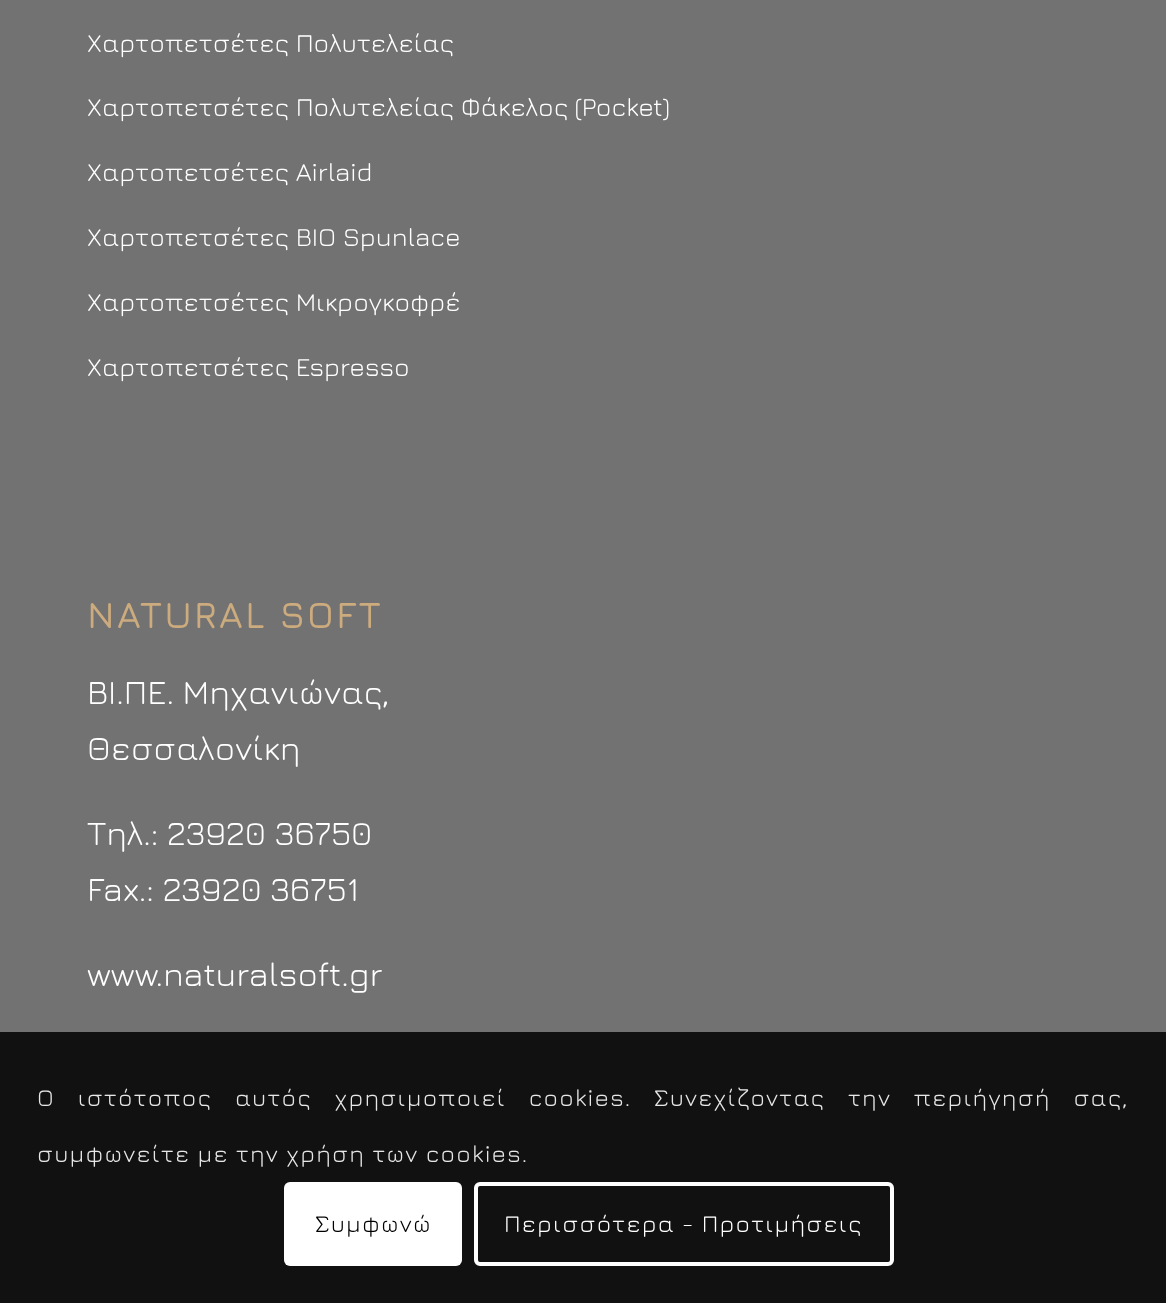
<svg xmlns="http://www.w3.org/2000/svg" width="1166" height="1303">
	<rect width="100%" height="100%" fill="#727272" />
	<g font-family="Jura" font-size="26" font-weight="300" fill="#FFFFFF">
		<text x="87" y="52">Χαρτοπετσέτες Πολυτελείας</text>
		<text x="87" y="116">Χαρτοπετσέτες Πολυτελείας Φάκελος (Pocket)</text>
		<text x="87" y="181">Χαρτοπετσέτες Airlaid</text>
		<text x="87" y="246">Χαρτοπετσέτες BIO Spunlace</text>
		<text x="87" y="311">Χαρτοπετσέτες Μικρογκοφρέ</text>
		<text x="87" y="376">Χαρτοπετσέτες Espresso</text>
	</g>
	<text x="87" y="628" font-family="Jura" font-size="37.5" font-weight="600" letter-spacing="2" fill="#CCAB7E">NATURAL SOFT</text>
	<g font-family="Jura" font-size="34" font-weight="300" fill="#FFFFFF">
		<text x="87" y="704">ΒΙ.ΠΕ. Μηχανιώνας,</text>
		<text x="87" y="760">Θεσσαλονίκη</text>
		<text x="87" y="845">Τηλ.: 23920 36750</text>
		<text x="87" y="901">Fax.: 23920 36751</text>
		<text x="87" y="986">www.naturalsoft.gr</text>
	</g>
	<rect x="0" y="1032" width="1166" height="271" fill="#000000" fill-opacity="0.85" />
	<g font-family="Jura" font-size="24" font-weight="300" letter-spacing="1.2" fill="#E7E7E7">
		<text x="37" y="1106" word-spacing="15.5">Ο ιστότοπος αυτός χρησιμοποιεί cookies. Συνεχίζοντας την περιήγησή σας,</text>
		<text x="37" y="1162">συμφωνείτε με την χρήση των cookies.</text>
	</g>
	<rect x="284" y="1182" width="178" height="84" rx="6" fill="#FFFFFF" />
	<text x="315" y="1232" font-family="Jura" font-size="24" font-weight="300" letter-spacing="1.2" fill="#000000">Συμφωνώ</text>
	<rect x="476" y="1184" width="416" height="80" rx="4" fill="none" stroke="#FFFFFF" stroke-width="4" />
	<text x="504" y="1232" font-family="Jura" font-size="24" font-weight="300" letter-spacing="1.2" fill="#FFFFFF">Περισσότερα - Προτιμήσεις</text>
</svg>
